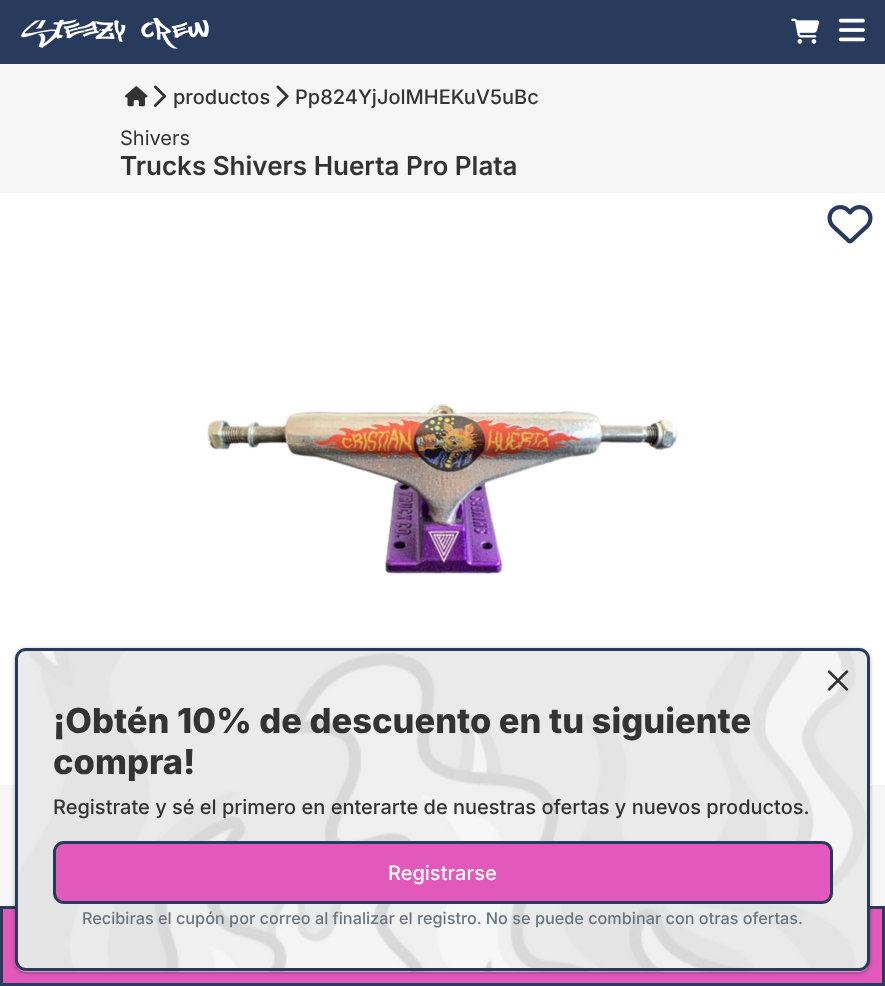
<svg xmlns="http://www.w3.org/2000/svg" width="885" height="986">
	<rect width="100%" height="100%" fill="#F6F6F6" />
	<rect x="0" y="0" width="885" height="64" fill="#283B5D" />
	<image x="21" y="18" width="188" height="31" href="assets/img1.png" />
	<image x="791" y="18" width="29" height="26" href="assets/img2.png" />
	<image x="838" y="18" width="27" height="24" href="assets/img3.png" />
	<image x="125" y="86" width="23" height="21" href="assets/img4.png" />
	<image x="153" y="85" width="13" height="22" href="assets/img5.png" />
	<text x="173" y="104" font-family="Inter" font-size="20" font-weight="500" fill="#333333">productos</text>
	<image x="276" y="85" width="13" height="22" href="assets/img6.png" />
	<text x="295" y="104" font-family="Inter" font-size="20" font-weight="500" fill="#333333">Pp824YjJolMHEKuV5uBc</text>
	<text x="120" y="145" font-family="Inter" font-size="20" fill="#333333">Shivers</text>
	<text x="120" y="175" font-family="Inter" font-size="26" font-weight="600" fill="#333333">Trucks Shivers Huerta Pro Plata</text>
	<rect x="0" y="193" width="885" height="592" fill="#FFFFFF" />
	<image x="207" y="403" width="471" height="172" href="assets/img7.png" />
	<image x="827" y="205" width="46" height="39" href="assets/img8.png" />
	<rect x="1.5" y="907.5" width="882" height="77" fill="#E259BB" stroke="#283B5D" stroke-width="3" />
	<rect x="15" y="649" width="855" height="324" rx="11" fill="#000000" fill-opacity="0.3" filter="blur(2px)" />
	<image x="17" y="648" width="851" height="324" href="assets/img9.png" />
	<rect x="16.5" y="649.5" width="852" height="320" rx="9.5" fill="none" stroke="#283B5D" stroke-width="3" />
	<image x="827" y="670" width="22" height="21" href="assets/img10.png" />
	<g font-family="Inter" font-size="34.5" font-weight="800" fill="#333333">
		<text x="53" y="733">¡Obtén 10% de descuento en tu siguiente</text>
		<text x="53" y="774">compra!</text>
	</g>
	<text x="53" y="814" font-family="Inter" font-size="20" font-weight="500" fill="#333333">Registrate y sé el primero en enterarte de nuestras ofertas y nuevos productos.</text>
	<rect x="54.5" y="842.5" width="777" height="60" rx="9.5" fill="#E259BB" stroke="#283B5D" stroke-width="3" />
	<text x="388" y="880" font-family="Inter" font-size="20" font-weight="500" fill="#FFFFFF">Registrarse</text>
	<text x="82" y="924" font-family="Inter" font-size="16.25" font-weight="500" fill="#6C757D">Recibiras el cupón por correo al finalizar el registro. No se puede combinar con otras ofertas.</text>
</svg>
